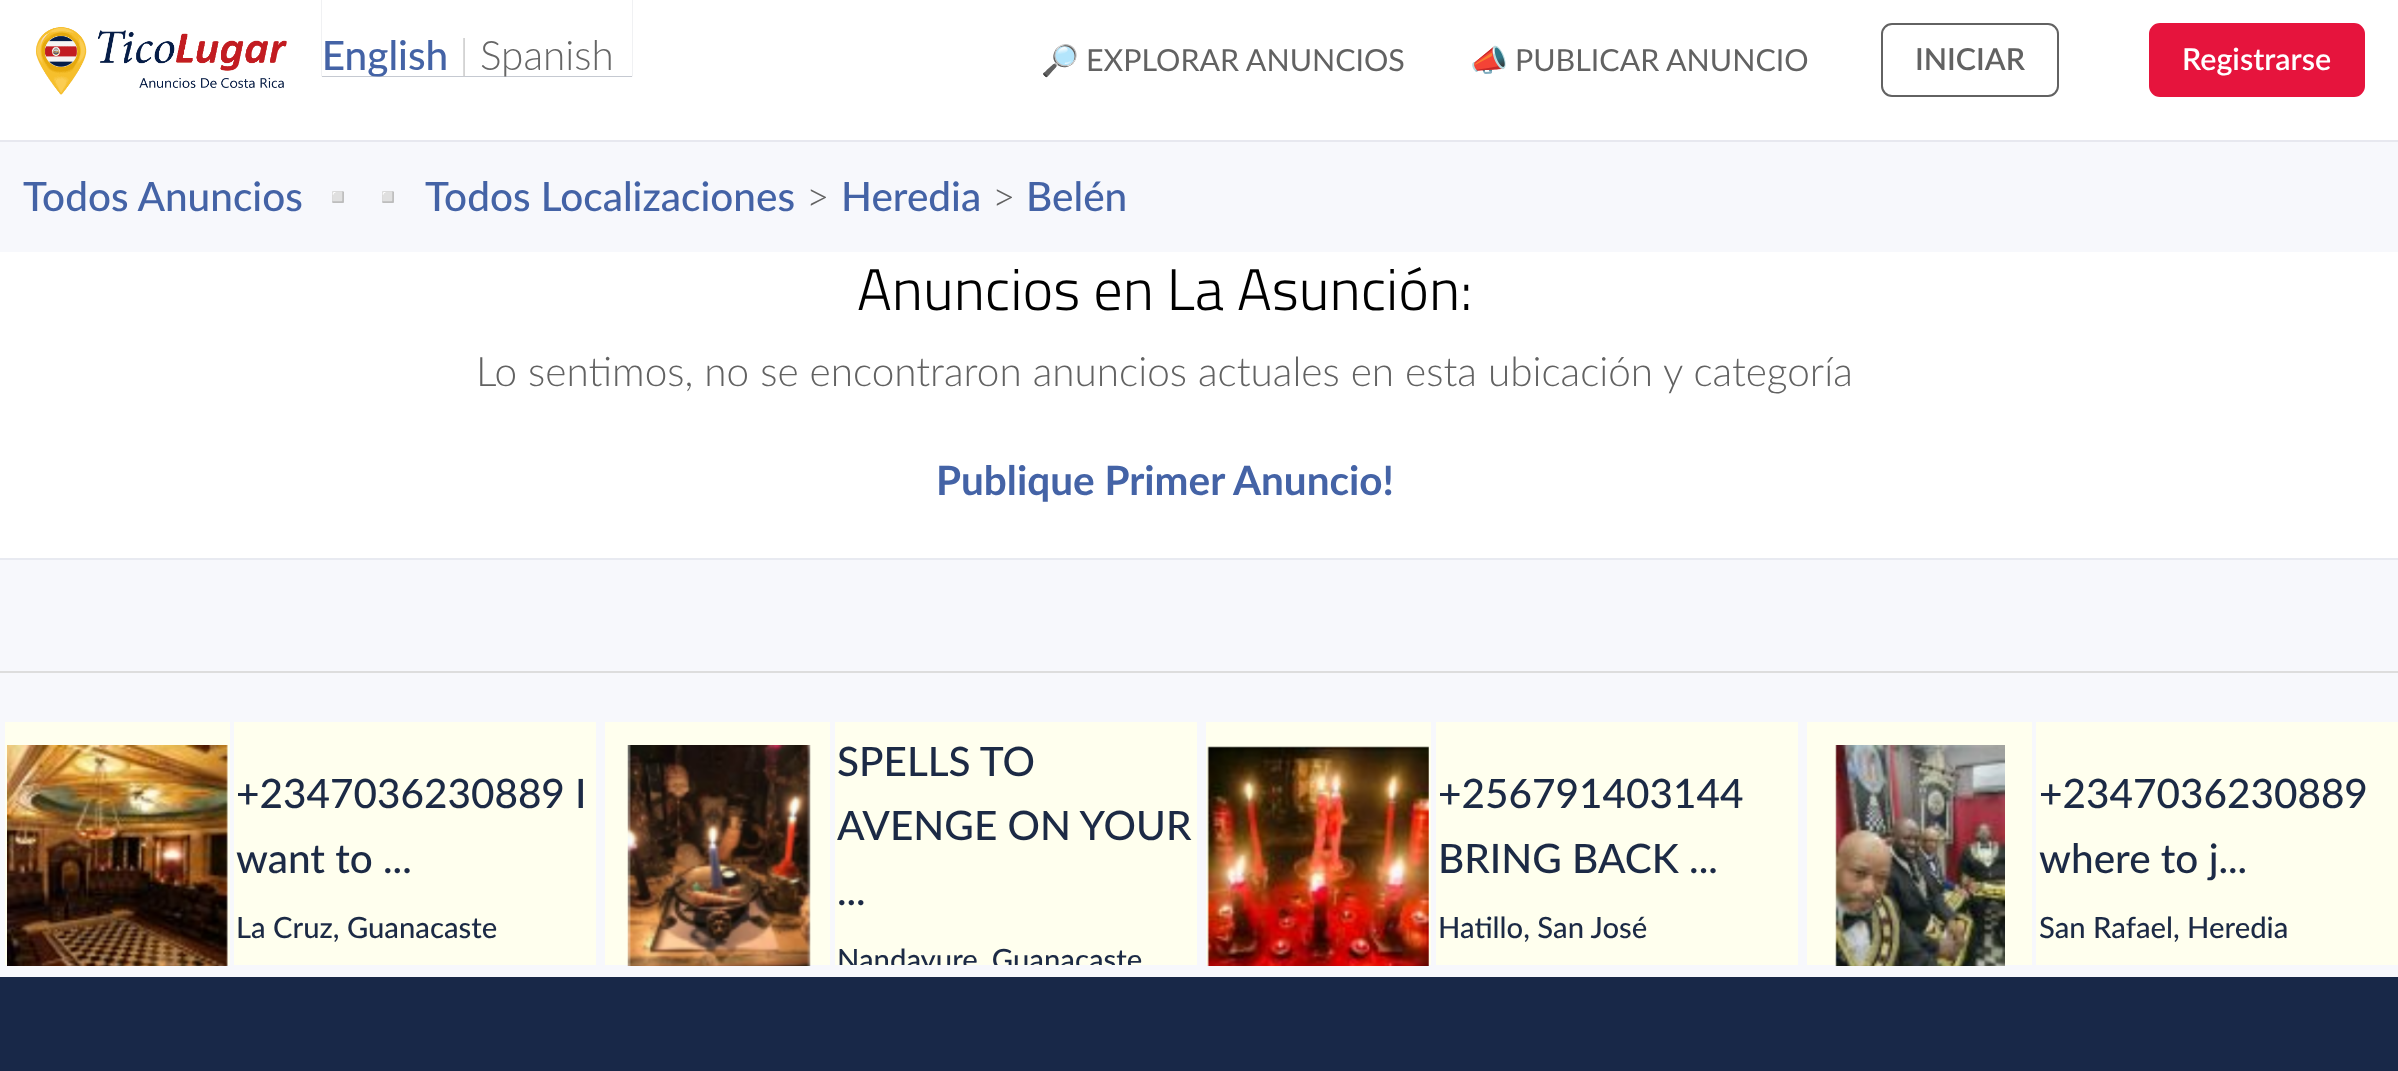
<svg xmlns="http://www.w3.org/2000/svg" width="2398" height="1071">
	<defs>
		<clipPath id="clip1"><rect x="0" y="718" width="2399" height="247" /></clipPath>
	</defs>
	<rect width="100%" height="100%" fill="#182848" />
	<rect x="0" y="0" width="2398" height="140" fill="#FFFFFF" />
	<rect x="0" y="140" width="2398" height="2" fill="#E7E8EF" />
	<image x="98" y="30" width="189" height="58" href="assets/img1.png" />
	<image x="36" y="27" width="51" height="68" href="assets/img2.png" />
	<image x="321" y="0" width="312" height="77" href="assets/img3.png" />
	<text x="1041" y="71" font-family="Noto Color Emoji" font-size="30.4" fill="#626262">🔎</text>
	<text x="1086" y="71" font-family="Lato" font-size="30.4" fill="#626262">EXPLORAR ANUNCIOS</text>
	<text x="1470" y="71" font-family="Noto Color Emoji" font-size="30.4" fill="#626262">📣</text>
	<text x="1515" y="71" font-family="Lato" font-size="30.4" fill="#626262">PUBLICAR ANUNCIO</text>
	<rect x="1882" y="24" width="176" height="72" rx="10" fill="none" stroke="#626262" stroke-width="2" />
	<text x="1915" y="70" font-family="Lato" font-size="30.4" font-weight="600" fill="#626262">INICIAR</text>
	<rect x="2150" y="24" width="214" height="72" rx="10" fill="#E6143D" stroke="#E6143D" stroke-width="2" />
	<text x="2182" y="70" font-family="Lato" font-size="30.4" font-weight="600" fill="#FFFFFF">Registrarse</text>
	<rect x="0" y="142" width="2398" height="835" fill="#F7F8FC" />
	<text x="23" y="211" font-family="Lato" font-size="40.5" font-weight="500" fill="#4463A6">Todos Anuncios</text>
	<text x="313" y="211" font-family="Noto Color Emoji" font-size="40.5" fill="#626262">▫️▫️</text>
	<text x="425" y="211" font-family="Lato" font-size="40.5" font-weight="500" fill="#4463A6">Todos Localizaciones</text>
	<text x="806" y="211" font-family="Lato" font-size="40.5" font-weight="300" fill="#626262">&gt;</text>
	<text x="841" y="211" font-family="Lato" font-size="40.5" font-weight="500" fill="#4463A6">Heredia</text>
	<text x="992" y="211" font-family="Lato" font-size="40.5" font-weight="300" fill="#626262">&gt;</text>
	<text x="1026" y="211" font-family="Lato" font-size="40.5" font-weight="500" fill="#4463A6">Belén</text>
	<rect x="0" y="252" width="2398" height="306" fill="#FFFFFF" />
	<rect x="0" y="558" width="2398" height="2" fill="#E8EAF1" />
	<text x="857" y="310" font-family="Titillium Web" font-size="58.5" font-weight="300" fill="#000000">Anuncios en La Asunción:</text>
	<text x="476" y="386" font-family="Lato" font-size="40.5" font-weight="300" fill="#626262">Lo sentimos, no se encontraron anuncios actuales en esta ubicación y categoría</text>
	<text x="936" y="495" font-family="Lato" font-size="40.5" font-weight="700" fill="#4463A6">Publique Primer Anuncio!</text>
	<rect x="0" y="671" width="2398" height="2" fill="#DDDDDD" />
	<rect x="5" y="722" width="225" height="243" fill="#FFFFEE" />
	<image x="7" y="745" width="221" height="221" href="assets/img4.png" />
	<rect x="234" y="722" width="362" height="243" fill="#FFFFEE" />
	<g font-family="Lato" font-size="40.5" font-weight="500" fill="#1C2A45">
		<text x="236" y="808">+2347036230889 I</text>
		<text x="236" y="873">want to ...</text>
	</g>
	<text x="236" y="938" font-family="Lato" font-size="29.25" font-weight="500" fill="#1C2A45">La Cruz, Guanacaste</text>
	<rect x="605" y="722" width="225" height="243" fill="#FFFFEE" />
	<image x="627" y="745" width="184" height="221" href="assets/img5.png" />
	<rect x="835" y="722" width="362" height="243" fill="#FFFFEE" />
	<g font-family="Lato" font-size="40.5" font-weight="500" fill="#1C2A45">
		<text x="837" y="776">SPELLS TO</text>
		<text x="837" y="840">AVENGE ON YOUR</text>
		<text x="837" y="905">...</text>
	</g>
	<g clip-path="url(#clip1)">
		<text x="837" y="970" font-family="Lato" font-size="29.25" font-weight="500" fill="#1C2A45">Nandayure, Guanacaste</text>
	</g>
	<rect x="1206" y="722" width="225" height="243" fill="#FFFFEE" />
	<image x="1207" y="746" width="222" height="220" href="assets/img6.png" />
	<rect x="1436" y="722" width="362" height="243" fill="#FFFFEE" />
	<g font-family="Lato" font-size="40.5" font-weight="500" fill="#1C2A45">
		<text x="1438" y="808">+256791403144</text>
		<text x="1438" y="873">BRING BACK ...</text>
	</g>
	<text x="1438" y="938" font-family="Lato" font-size="29.25" font-weight="500" fill="#1C2A45">Hatillo, San José</text>
	<rect x="1807" y="722" width="225" height="243" fill="#FFFFEE" />
	<image x="1835" y="745" width="170" height="221" href="assets/img7.png" />
	<rect x="2036" y="722" width="362" height="243" fill="#FFFFEE" />
	<g font-family="Lato" font-size="40.5" font-weight="500" fill="#1C2A45">
		<text x="2039" y="808">+2347036230889</text>
		<text x="2039" y="873">where to j...</text>
	</g>
	<text x="2039" y="938" font-family="Lato" font-size="29.25" font-weight="500" fill="#1C2A45">San Rafael, Heredia</text>
</svg>
